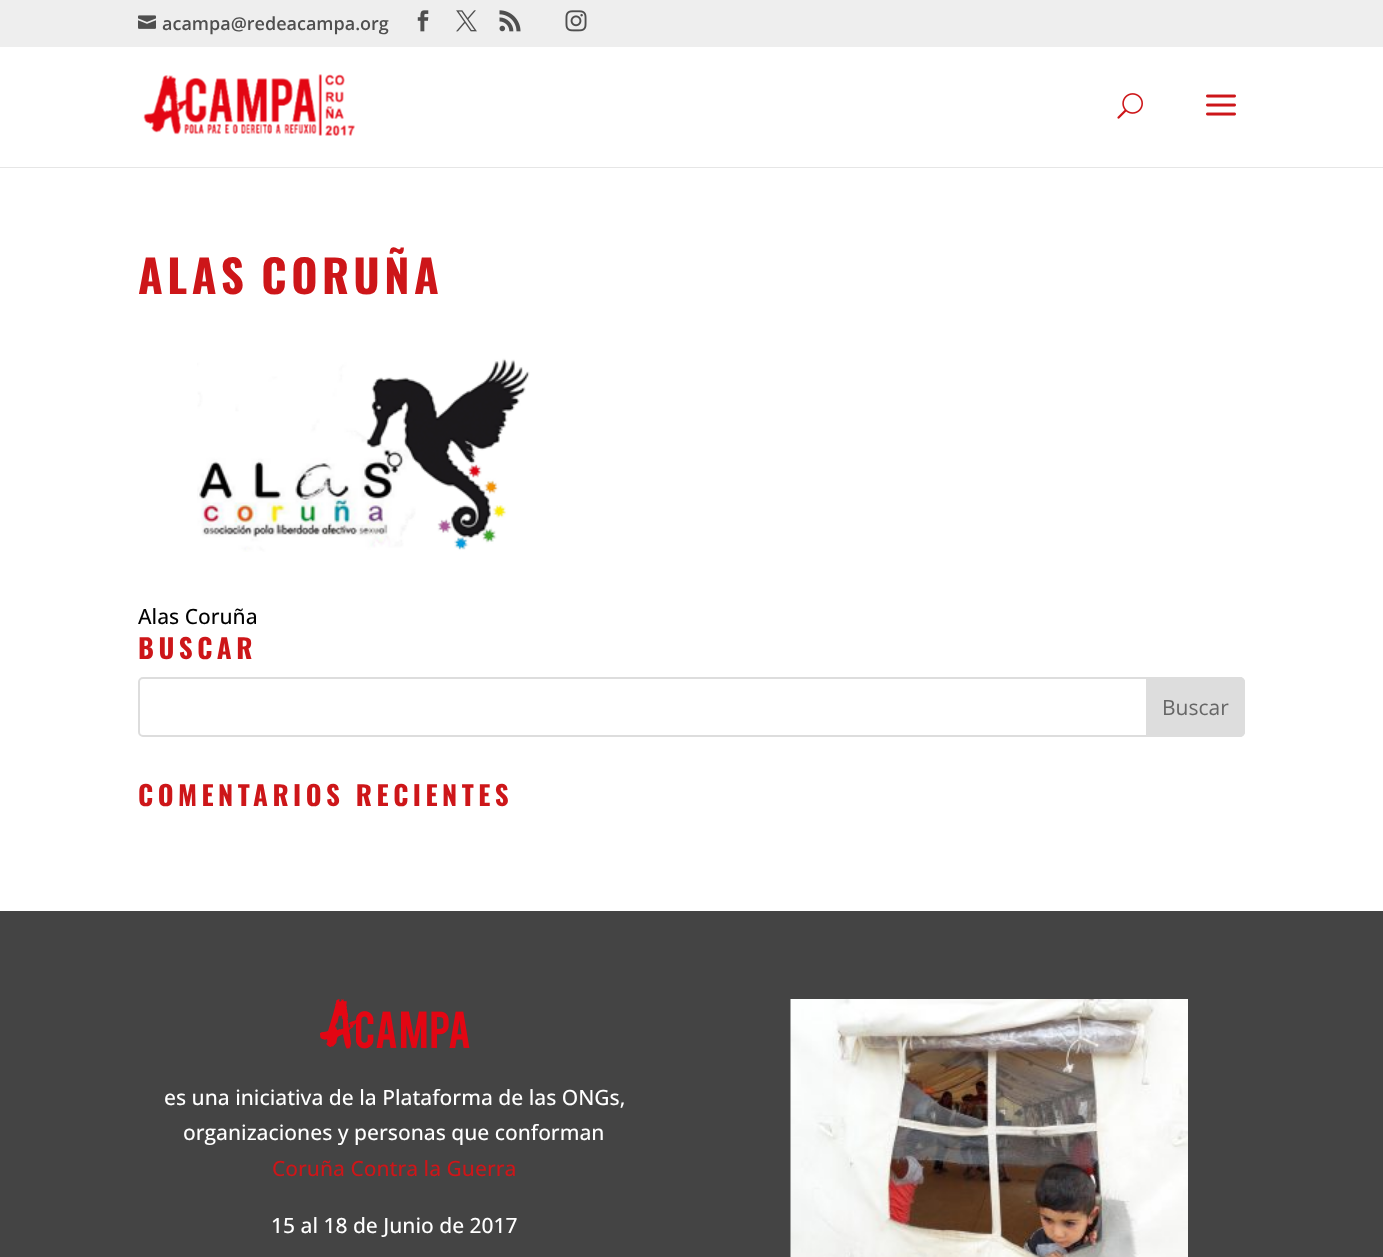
<svg xmlns="http://www.w3.org/2000/svg" width="1383" height="1257">
	<rect width="100%" height="100%" fill="#FFFFFF" />
	<rect x="0" y="0" width="1383" height="47" fill="#EEEEEE" />
	<image x="138" y="15" width="18" height="14" href="assets/img1.png" />
	<text x="162" y="30" font-family="Open Sans" font-size="18" font-weight="600" fill="#4F4F4F">acampa@redeacampa.org</text>
	<image x="417" y="10" width="12" height="22" href="assets/img2.png" />
	<image x="456" y="10" width="21" height="22" href="assets/img3.png" />
	<image x="499" y="10" width="22" height="22" href="assets/img4.png" />
	<image x="565" y="10" width="22" height="22" href="assets/img5.png" />
	<rect x="0" y="167" width="1383" height="1" fill="#E6E6E6" />
	<image x="143" y="74" width="212" height="62" href="assets/img6.png" />
	<image x="1117" y="93" width="26" height="26" href="assets/img7.png" />
	<image x="1206" y="94" width="30" height="22" href="assets/img8.png" />
	<text x="138" y="294" word-spacing="-3" font-family="Oswald" font-size="45" font-weight="700" letter-spacing="4.5" fill="#CD1619">ALAS CORUÑA</text>
	<image x="197" y="358" width="333" height="194" href="assets/img9.png" />
	<text x="138" y="624" font-family="Open Sans" font-size="21" font-weight="500" fill="#000000">Alas Coruña</text>
	<text x="138" y="659" font-family="Oswald" font-size="27" font-weight="700" letter-spacing="4.5" fill="#CD1619">BUSCAR</text>
	<rect x="139" y="678" width="1105" height="58" rx="4" fill="none" stroke="#DDDDDD" stroke-width="2" />
	<path d="M1147 678H1240C1242 678 1244 680 1244 682V732C1244 734 1242 736 1240 736H1147Z" fill="#DDDDDD" stroke="#DDDDDD" stroke-width="2" />
	<text x="1162" y="715" font-family="Open Sans" font-size="21" fill="#666666">Buscar</text>
	<text x="138" y="806" font-family="Oswald" font-size="27" font-weight="700" letter-spacing="4.5" fill="#CD1619">COMENTARIOS RECIENTES</text>
	<rect x="0" y="911" width="1383" height="346" fill="#444444" />
	<image x="320" y="999" width="150" height="50" href="assets/img10.png" />
	<g font-family="Open Sans" font-size="21" font-weight="500" fill="#FFFFFF">
		<text x="164" y="1105">es una iniciativa de la Plataforma de las ONGs,</text>
		<text x="183" y="1140">organizaciones y personas que conforman</text>
	</g>
	<text x="272" y="1176" font-family="Open Sans" font-size="21" font-weight="500" fill="#CD1619">Coruña Contra la Guerra</text>
	<text x="271" y="1233" font-family="Open Sans" font-size="21" font-weight="500" fill="#FFFFFF">15 al 18 de Junio de 2017</text>
	<image x="790" y="999" width="398" height="258" href="assets/img11.png" />
</svg>
